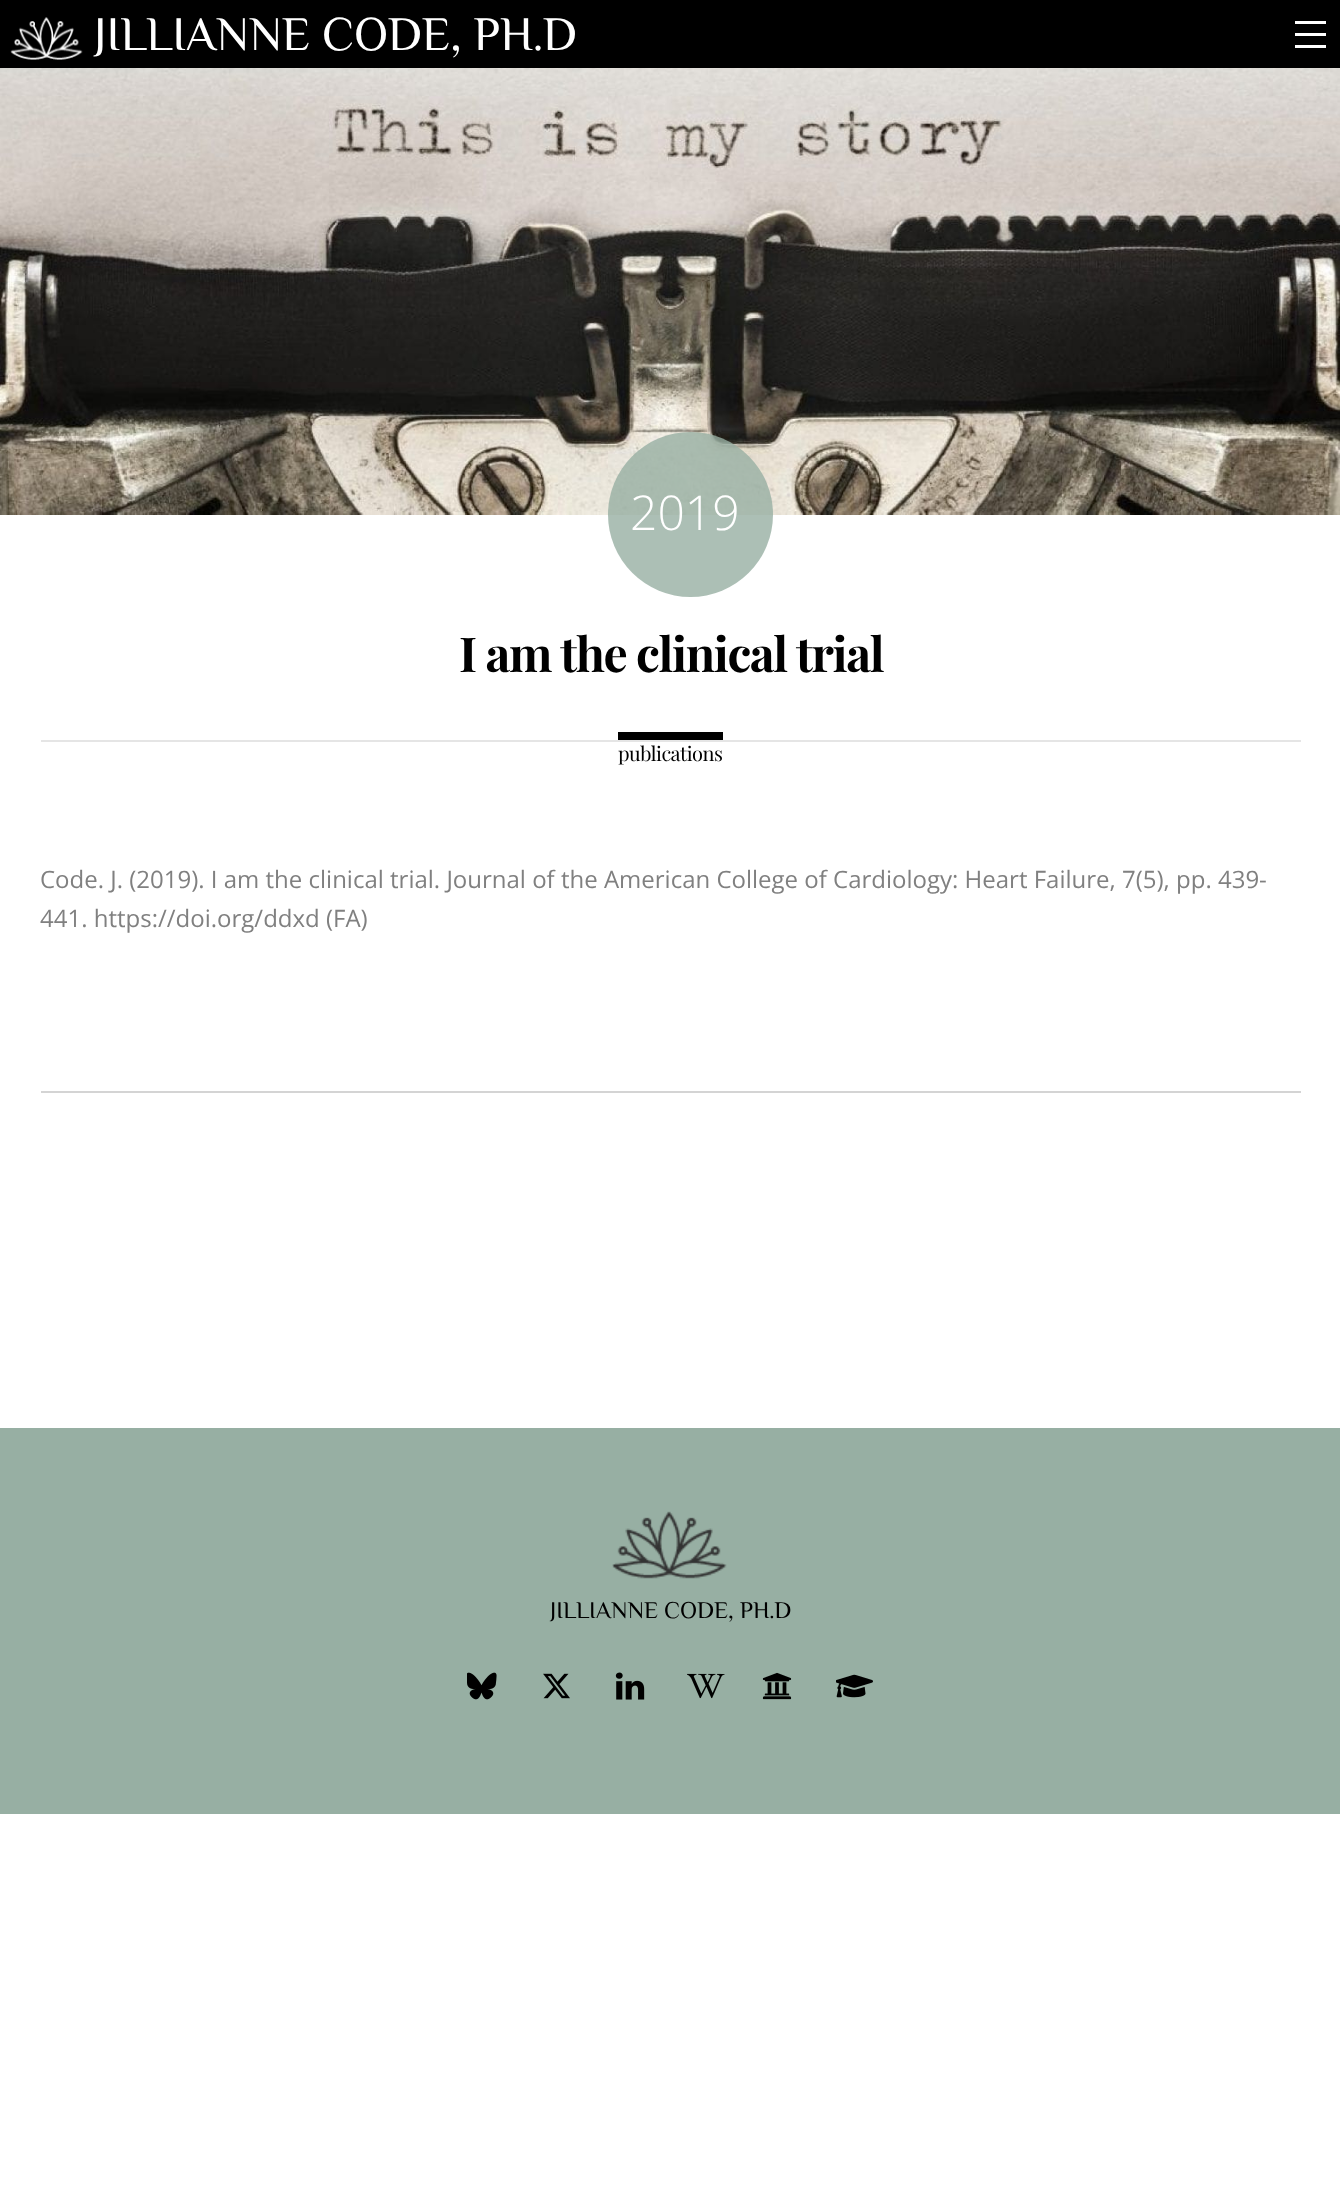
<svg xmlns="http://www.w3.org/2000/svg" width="1340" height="2204">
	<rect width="100%" height="100%" fill="#FFFFFF" />
	<rect x="0" y="0" width="1340" height="68" fill="#000000" />
	<image x="10" y="17" width="73" height="43" href="assets/img1.png" />
	<text x="94" y="50" font-family="Philosopher" font-size="48" fill="#FFFFFF">JILLIANNE CODE, PH.D</text>
	<rect x="1295" y="45" width="31" height="3" fill="#FFFFFF" />
	<rect x="1295" y="21" width="31" height="3" fill="#FFFFFF" />
	<rect x="1295" y="33" width="31" height="3" fill="#FFFFFF" />
	<image x="0" y="68" width="1340" height="447" href="assets/img2.png" />
	<circle cx="690.5" cy="514.5" r="82.5" fill="#97AFA3" fill-opacity="0.8" />
	<text x="630" y="530" font-family="Open Sans" font-size="48" font-weight="300" fill="#FFFFFF">2019</text>
	<text x="459" y="672" font-family="Playfair Display" font-size="48" font-weight="700" letter-spacing="-1.4" fill="#000000">I am the clinical trial</text>
	<rect x="618" y="732" width="105" height="8" fill="#000000" />
	<rect x="41" y="740" width="1260" height="2" fill="#E5E5E5" />
	<text x="618" y="761" font-family="Playfair Display" font-size="20" letter-spacing="-0.5" fill="#000000">publications</text>
	<g font-family="Open Sans" font-size="24" fill="#808080">
		<text x="40" y="888">Code. J. (2019). I am the clinical trial. Journal of the American College of Cardiology: Heart Failure, 7(5), pp. 439-</text>
		<text x="40" y="927">441. https://doi.org/ddxd (FA)</text>
	</g>
	<rect x="41" y="1091" width="1260" height="2" fill="#D4D4D4" />
	<rect x="0" y="1428" width="1340" height="386" fill="#97AFA3" />
	<image x="612" y="1511" width="115" height="68" href="assets/img3.png" />
	<text x="550" y="1618" font-family="Philosopher" font-size="24" fill="#000000">JILLIANNE CODE, PH.D</text>
	<image x="467" y="1672" width="30" height="28" href="assets/img4.png" />
	<image x="543" y="1673" width="27" height="26" href="assets/img5.png" />
	<image x="615" y="1672" width="30" height="28" href="assets/img6.png" />
	<image x="687" y="1673" width="38" height="26" href="assets/img7.png" />
	<image x="762" y="1672" width="30" height="28" href="assets/img8.png" />
	<image x="836" y="1674" width="37" height="24" href="assets/img9.png" />
</svg>
